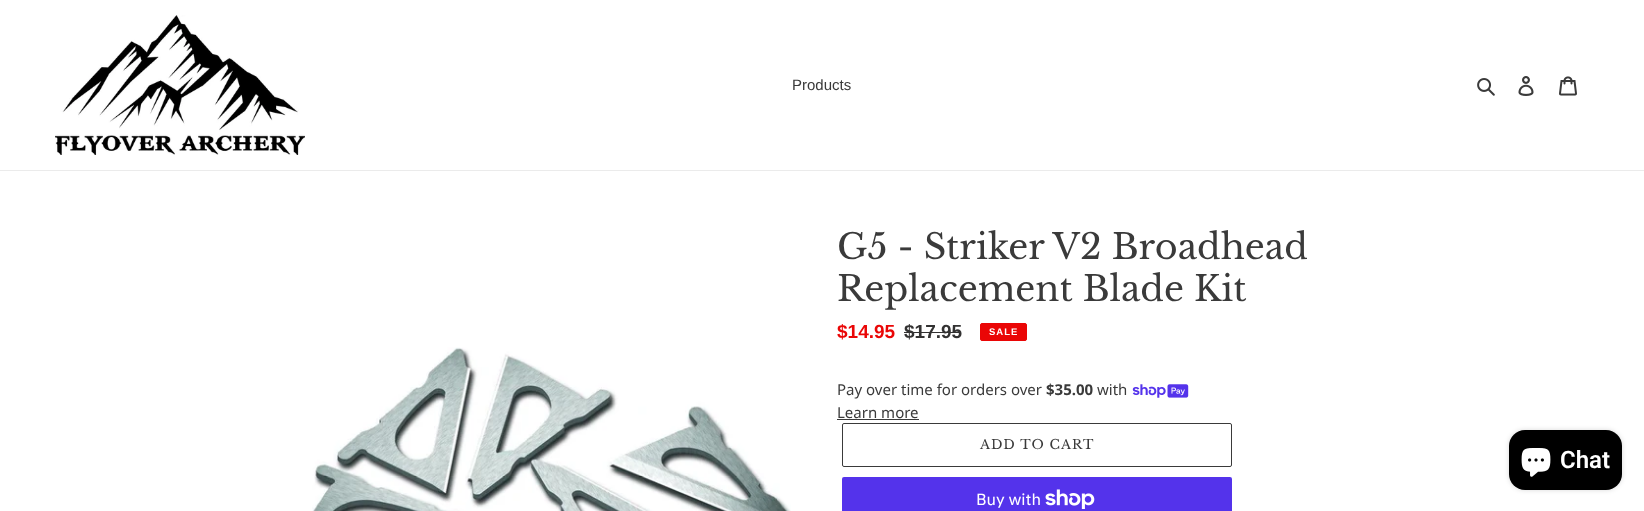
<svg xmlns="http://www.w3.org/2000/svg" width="1644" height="511">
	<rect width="100%" height="100%" fill="#FFFFFF" />
	<rect x="0" y="170" width="1644" height="1" fill="#EBEBEB" />
	<image x="55" y="15" width="250" height="140" href="assets/img1.png" />
	<text x="792" y="90" font-family="Liberation Sans" font-size="15" fill="#3A3A3A">Products</text>
	<image x="1477" y="78" width="18" height="18" href="assets/img2.png" />
	<image x="1518" y="76" width="16" height="20" href="assets/img3.png" />
	<image x="1559" y="76" width="18" height="20" href="assets/img4.png" />
	<image x="312" y="347" width="479" height="164" href="assets/img5.png" />
	<g font-family="Libre Baskerville" font-size="35" fill="#3A3A3A">
		<text x="837" y="259">G5 - Striker V2 Broadhead</text>
		<text x="837" y="301">Replacement Blade Kit</text>
	</g>
	<text x="837" y="338" font-family="Liberation Sans" font-size="19" font-weight="700" fill="#EA0606">$14.95</text>
	<text x="904" y="338" font-family="Liberation Sans" font-size="19" font-weight="700" fill="#333232">$17.95</text>
	<rect x="904" y="332" width="57" height="1" fill="#333232" />
	<rect x="980.5" y="323.5" width="46" height="17" rx="1.5" fill="#EA0606" stroke="#EA0606" />
	<text x="989" y="335" font-family="Liberation Sans" font-size="9.5" font-weight="700" letter-spacing="1" fill="#FFFFFF">SALE</text>
	<text x="837" y="395" font-family="Noto Sans" font-size="15" fill="#3A3A3A">Pay over time for orders over</text>
	<text x="1046" y="395" font-family="Noto Sans" font-size="15" font-weight="700" fill="#3A3A3A">$35.00</text>
	<text x="1097" y="395" font-family="Noto Sans" font-size="15" fill="#3A3A3A">with</text>
	<image x="1132" y="384" width="57" height="14" href="assets/img6.png" />
	<text x="837" y="418" font-family="Noto Sans" font-size="15" fill="#3A3A3A">Learn more</text>
	<rect x="837" y="419" width="82" height="1" fill="#3A3A3A" />
	<rect x="842.5" y="423.5" width="389" height="43" rx="1.5" fill="none" stroke="#3A3A3A" />
	<text x="980" y="449" font-family="Libre Baskerville" font-size="13" letter-spacing="1" fill="#3A3A3A">ADD TO CART</text>
	<rect x="842" y="477" width="390" height="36" rx="2" fill="#5433EB" />
	<text x="976" y="505" font-family="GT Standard" font-size="16" fill="#FFFFFF">Buy with</text>
	<image x="1045" y="489" width="50" height="20" href="assets/img7.png" />
	<rect x="1509" y="430" width="113" height="60" rx="16" fill="#000000" fill-opacity="0.15" filter="blur(2.5px)" />
	<rect x="1509" y="430" width="113" height="60" rx="16" fill="#000000" />
	<image x="1521" y="448" width="30" height="29" href="assets/img8.png" />
	<text x="1560" y="468" font-family="Roboto" font-size="24" font-weight="600" fill="#FFFFFF">Chat</text>
</svg>
